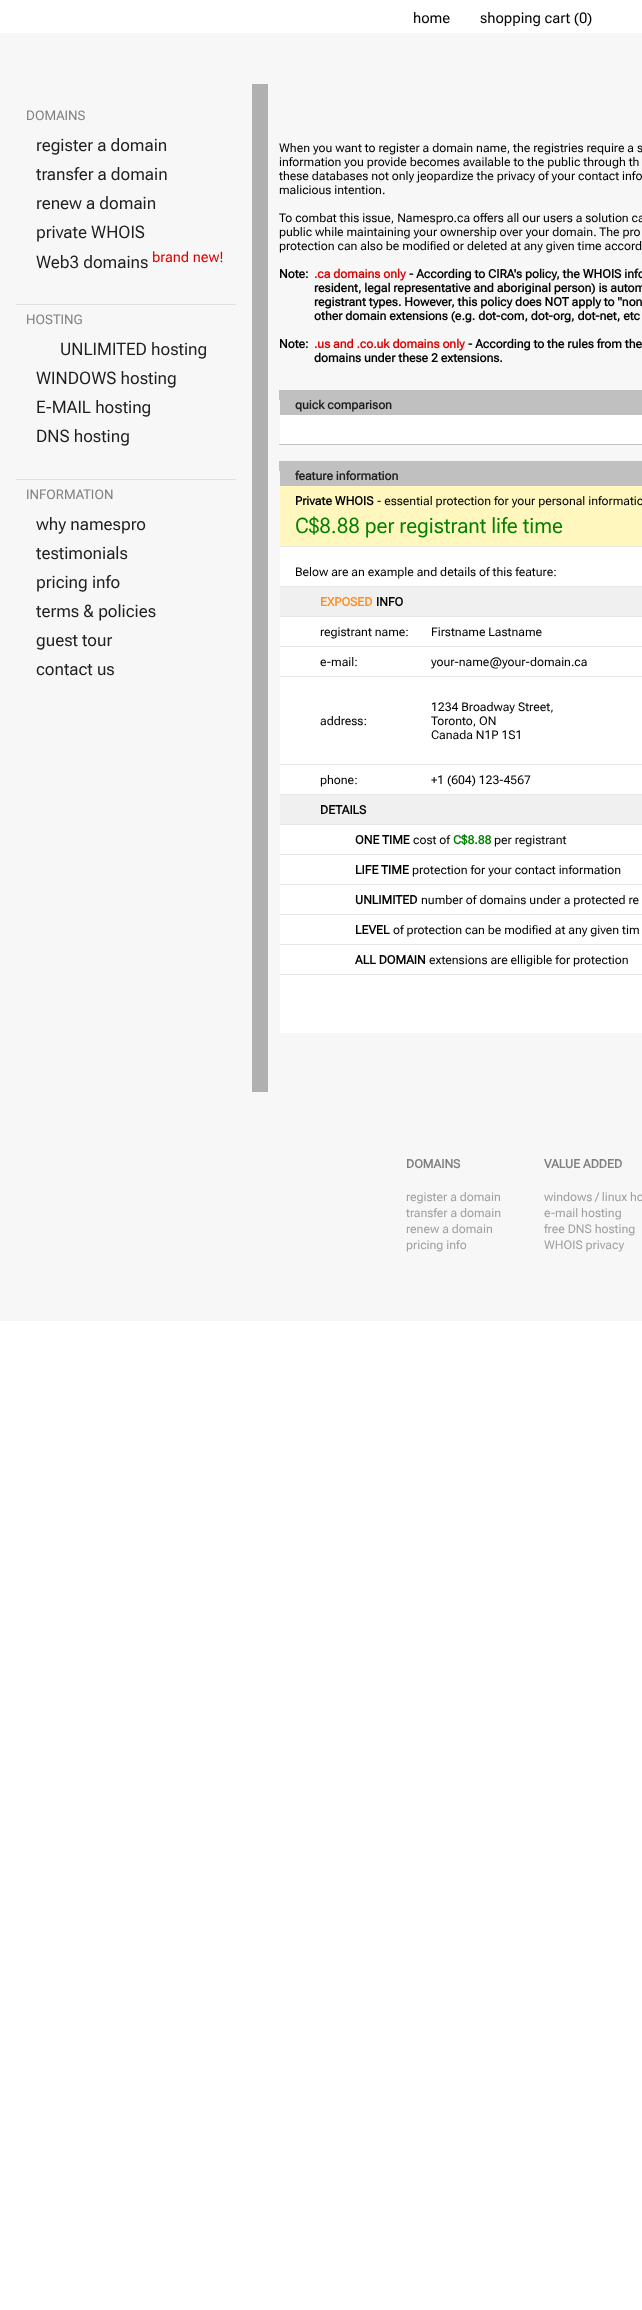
<svg xmlns="http://www.w3.org/2000/svg" width="642" height="2310">
	<rect width="100%" height="100%" fill="#FFFFFF" />
	<g font-family="'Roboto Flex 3'" font-size="14.75" fill="#000000">
		<text x="413" y="23">home</text>
		<text x="480" y="23">shopping cart (0)</text>
	</g>
	<rect x="0" y="33" width="642" height="1288" fill="#F7F7F7" />
	<text x="26" y="120" font-family="Roboto Flex" font-size="13.25" fill="#808080">DOMAINS</text>
	<g font-family="'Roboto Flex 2'" font-size="17.25" fill="#202020">
		<text x="36" y="151">register a domain</text>
		<text x="36" y="180">transfer a domain</text>
		<text x="36" y="209">renew a domain</text>
		<text x="36" y="238">private WHOIS</text>
		<text x="36" y="268">Web3 domains</text>
	</g>
	<text x="152" y="262" font-family="'Roboto Flex 3'" font-size="14.5" fill="#DE0000">brand new!</text>
	<rect x="16" y="304" width="220" height="1" fill="#E0E0E0" />
	<text x="26" y="324" font-family="Roboto Flex" font-size="13.25" fill="#808080">HOSTING</text>
	<g font-family="'Roboto Flex 2'" font-size="17.25" fill="#202020">
		<text x="60" y="355">UNLIMITED hosting</text>
		<text x="36" y="384">WINDOWS hosting</text>
		<text x="36" y="413">E-MAIL hosting</text>
		<text x="36" y="442">DNS hosting</text>
	</g>
	<rect x="16" y="479" width="220" height="1" fill="#E0E0E0" />
	<text x="26" y="499" font-family="Roboto Flex" font-size="13.25" fill="#808080">INFORMATION</text>
	<g font-family="'Roboto Flex 2'" font-size="17.25" fill="#202020">
		<text x="36" y="530">why namespro</text>
		<text x="36" y="559">testimonials</text>
		<text x="36" y="588">pricing info</text>
		<text x="36" y="617">terms &amp; policies</text>
		<text x="36" y="646">guest tour</text>
		<text x="36" y="675">contact us</text>
	</g>
	<rect x="252" y="84" width="16" height="1008" fill="#B0B0B0" />
	<g font-family="'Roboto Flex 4'" font-size="12" fill="#000000">
		<text x="279" y="152">When you want to register a domain name, the registries require a s</text>
		<text x="279" y="166">information you provide becomes available to the public through th</text>
		<text x="279" y="180">these databases not only jeopardize the privacy of your contact info</text>
		<text x="279" y="194">malicious intention.</text>
		<text x="279" y="222">To combat this issue, Namespro.ca offers all our users a solution ca</text>
		<text x="279" y="236">public while maintaining your ownership over your domain. The pro</text>
		<text x="279" y="250">protection can also be modified or deleted at any given time accord</text>
	</g>
	<text x="279" y="278" font-family="Roboto Flex" font-size="12" font-weight="700" fill="#000000">Note:</text>
	<text x="314" y="278" font-family="Roboto Flex" font-size="12" font-weight="700" fill="#DE0000">.ca domains only</text>
	<g font-family="Roboto Flex" font-size="12" font-weight="700" fill="#000000">
		<text x="409" y="278">- According to CIRA's policy, the WHOIS info</text>
		<text x="314" y="292">resident, legal representative and aboriginal person) is autom</text>
		<text x="314" y="306">registrant types. However, this policy does NOT apply to "non</text>
		<text x="314" y="320">other domain extensions (e.g. dot-com, dot-org, dot-net, etc</text>
		<text x="279" y="348">Note:</text>
	</g>
	<text x="314" y="348" font-family="Roboto Flex" font-size="12" font-weight="700" fill="#DE0000">.us and .co.uk domains only</text>
	<g font-family="Roboto Flex" font-size="12" font-weight="700" fill="#000000">
		<text x="468" y="348">- According to the rules from the</text>
		<text x="314" y="362">domains under these 2 extensions.</text>
	</g>
	<rect x="279" y="390" width="363" height="10" fill="#C0C0C0" />
	<rect x="280" y="400" width="362" height="15" fill="#C0C0C0" />
	<text x="295" y="409" font-family="Roboto Flex" font-size="12" font-weight="700" fill="#202020">quick comparison</text>
	<rect x="280" y="415" width="362" height="29" fill="#FFFFFF" />
	<rect x="279" y="444" width="363" height="1" fill="#C0C0C0" />
	<rect x="279" y="461" width="363" height="10" fill="#C0C0C0" />
	<rect x="280" y="471" width="362" height="15" fill="#C0C0C0" />
	<text x="295" y="480" font-family="Roboto Flex" font-size="12" font-weight="700" fill="#202020">feature information</text>
	<rect x="280" y="547" width="362" height="486" fill="#FFFFFF" />
	<rect x="280" y="486" width="362" height="60" fill="#FFF7BD" />
	<text x="295" y="505" font-family="Roboto Flex" font-size="12" font-weight="700" fill="#000000">Private WHOIS</text>
	<text x="377" y="505" font-family="'Roboto Flex 4'" font-size="12" fill="#000000">- essential protection for your personal informatio</text>
	<text x="295" y="533" font-family="'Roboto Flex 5'" font-size="21.3" fill="#008000">C$8.88 per registrant life time</text>
	<rect x="280" y="546" width="362" height="1" fill="#E8E8E8" />
	<text x="295" y="576" font-family="'Roboto Flex 4'" font-size="12" fill="#000000">Below are an example and details of this feature:</text>
	<rect x="280" y="586" width="362" height="1" fill="#E8E8E8" />
	<rect x="280" y="587" width="362" height="29" fill="#F0F0F0" />
	<text x="320" y="606" font-family="Roboto Flex" font-size="12" font-weight="700" fill="#FF8E21">EXPOSED</text>
	<text x="376" y="606" font-family="Roboto Flex" font-size="12" font-weight="700" fill="#000000">INFO</text>
	<rect x="280" y="616" width="362" height="1" fill="#E8E8E8" />
	<g font-family="'Roboto Flex 4'" font-size="12" fill="#000000">
		<text x="320" y="636">registrant name:</text>
		<text x="431" y="636">Firstname Lastname</text>
	</g>
	<rect x="280" y="646" width="362" height="1" fill="#E8E8E8" />
	<g font-family="'Roboto Flex 4'" font-size="12" fill="#000000">
		<text x="320" y="666">e-mail:</text>
		<text x="431" y="666">your-name@your-domain.ca</text>
	</g>
	<rect x="280" y="676" width="362" height="1" fill="#E8E8E8" />
	<g font-family="'Roboto Flex 4'" font-size="12" fill="#000000">
		<text x="320" y="725">address:</text>
		<text x="431" y="711">1234 Broadway Street,</text>
		<text x="431" y="725">Toronto, ON</text>
		<text x="431" y="739">Canada N1P 1S1</text>
	</g>
	<rect x="280" y="764" width="362" height="1" fill="#E8E8E8" />
	<g font-family="'Roboto Flex 4'" font-size="12" fill="#000000">
		<text x="320" y="784">phone:</text>
		<text x="431" y="784">+1 (604) 123-4567</text>
	</g>
	<rect x="280" y="794" width="362" height="1" fill="#E8E8E8" />
	<rect x="280" y="795" width="362" height="29" fill="#F0F0F0" />
	<text x="320" y="814" font-family="Roboto Flex" font-size="12" font-weight="700" fill="#000000">DETAILS</text>
	<rect x="280" y="824" width="362" height="1" fill="#E8E8E8" />
	<text x="355" y="844" font-family="Roboto Flex" font-size="12" font-weight="700" fill="#000000">ONE TIME</text>
	<text x="413" y="844" font-family="'Roboto Flex 4'" font-size="12" fill="#000000">cost of</text>
	<text x="453" y="844" font-family="Roboto Flex" font-size="12" font-weight="700" fill="#008000">C$8.88</text>
	<text x="494" y="844" font-family="'Roboto Flex 4'" font-size="12" fill="#000000">per registrant</text>
	<rect x="280" y="854" width="362" height="1" fill="#E8E8E8" />
	<text x="355" y="874" font-family="Roboto Flex" font-size="12" font-weight="700" fill="#000000">LIFE TIME</text>
	<text x="412" y="874" font-family="'Roboto Flex 4'" font-size="12" fill="#000000">protection for your contact information</text>
	<rect x="280" y="884" width="362" height="1" fill="#E8E8E8" />
	<text x="355" y="904" font-family="Roboto Flex" font-size="12" font-weight="700" fill="#000000">UNLIMITED</text>
	<text x="421" y="904" font-family="'Roboto Flex 4'" font-size="12" fill="#000000">number of domains under a protected re</text>
	<rect x="280" y="914" width="362" height="1" fill="#E8E8E8" />
	<text x="355" y="934" font-family="Roboto Flex" font-size="12" font-weight="700" fill="#000000">LEVEL</text>
	<text x="393" y="934" font-family="'Roboto Flex 4'" font-size="12" fill="#000000">of protection can be modified at any given tim</text>
	<rect x="280" y="944" width="362" height="1" fill="#E8E8E8" />
	<text x="355" y="964" font-family="Roboto Flex" font-size="12" font-weight="700" fill="#000000">ALL DOMAIN</text>
	<text x="429" y="964" font-family="'Roboto Flex 4'" font-size="12" fill="#000000">extensions are elligible for protection</text>
	<rect x="280" y="974" width="362" height="1" fill="#E8E8E8" />
	<text x="406" y="1168" font-family="Roboto Flex" font-size="12" font-weight="700" fill="#808080">DOMAINS</text>
	<g font-family="'Roboto Flex 4'" font-size="12" fill="#A0A0A0">
		<text x="406" y="1201">register a domain</text>
		<text x="406" y="1217">transfer a domain</text>
		<text x="406" y="1233">renew a domain</text>
		<text x="406" y="1249">pricing info</text>
	</g>
	<text x="544" y="1168" font-family="Roboto Flex" font-size="12" font-weight="700" fill="#808080">VALUE ADDED</text>
	<g font-family="'Roboto Flex 4'" font-size="12" fill="#A0A0A0">
		<text x="544" y="1201">windows / linux ho</text>
		<text x="544" y="1217">e-mail hosting</text>
		<text x="544" y="1233">free DNS hosting</text>
		<text x="544" y="1249">WHOIS privacy</text>
	</g>
</svg>
